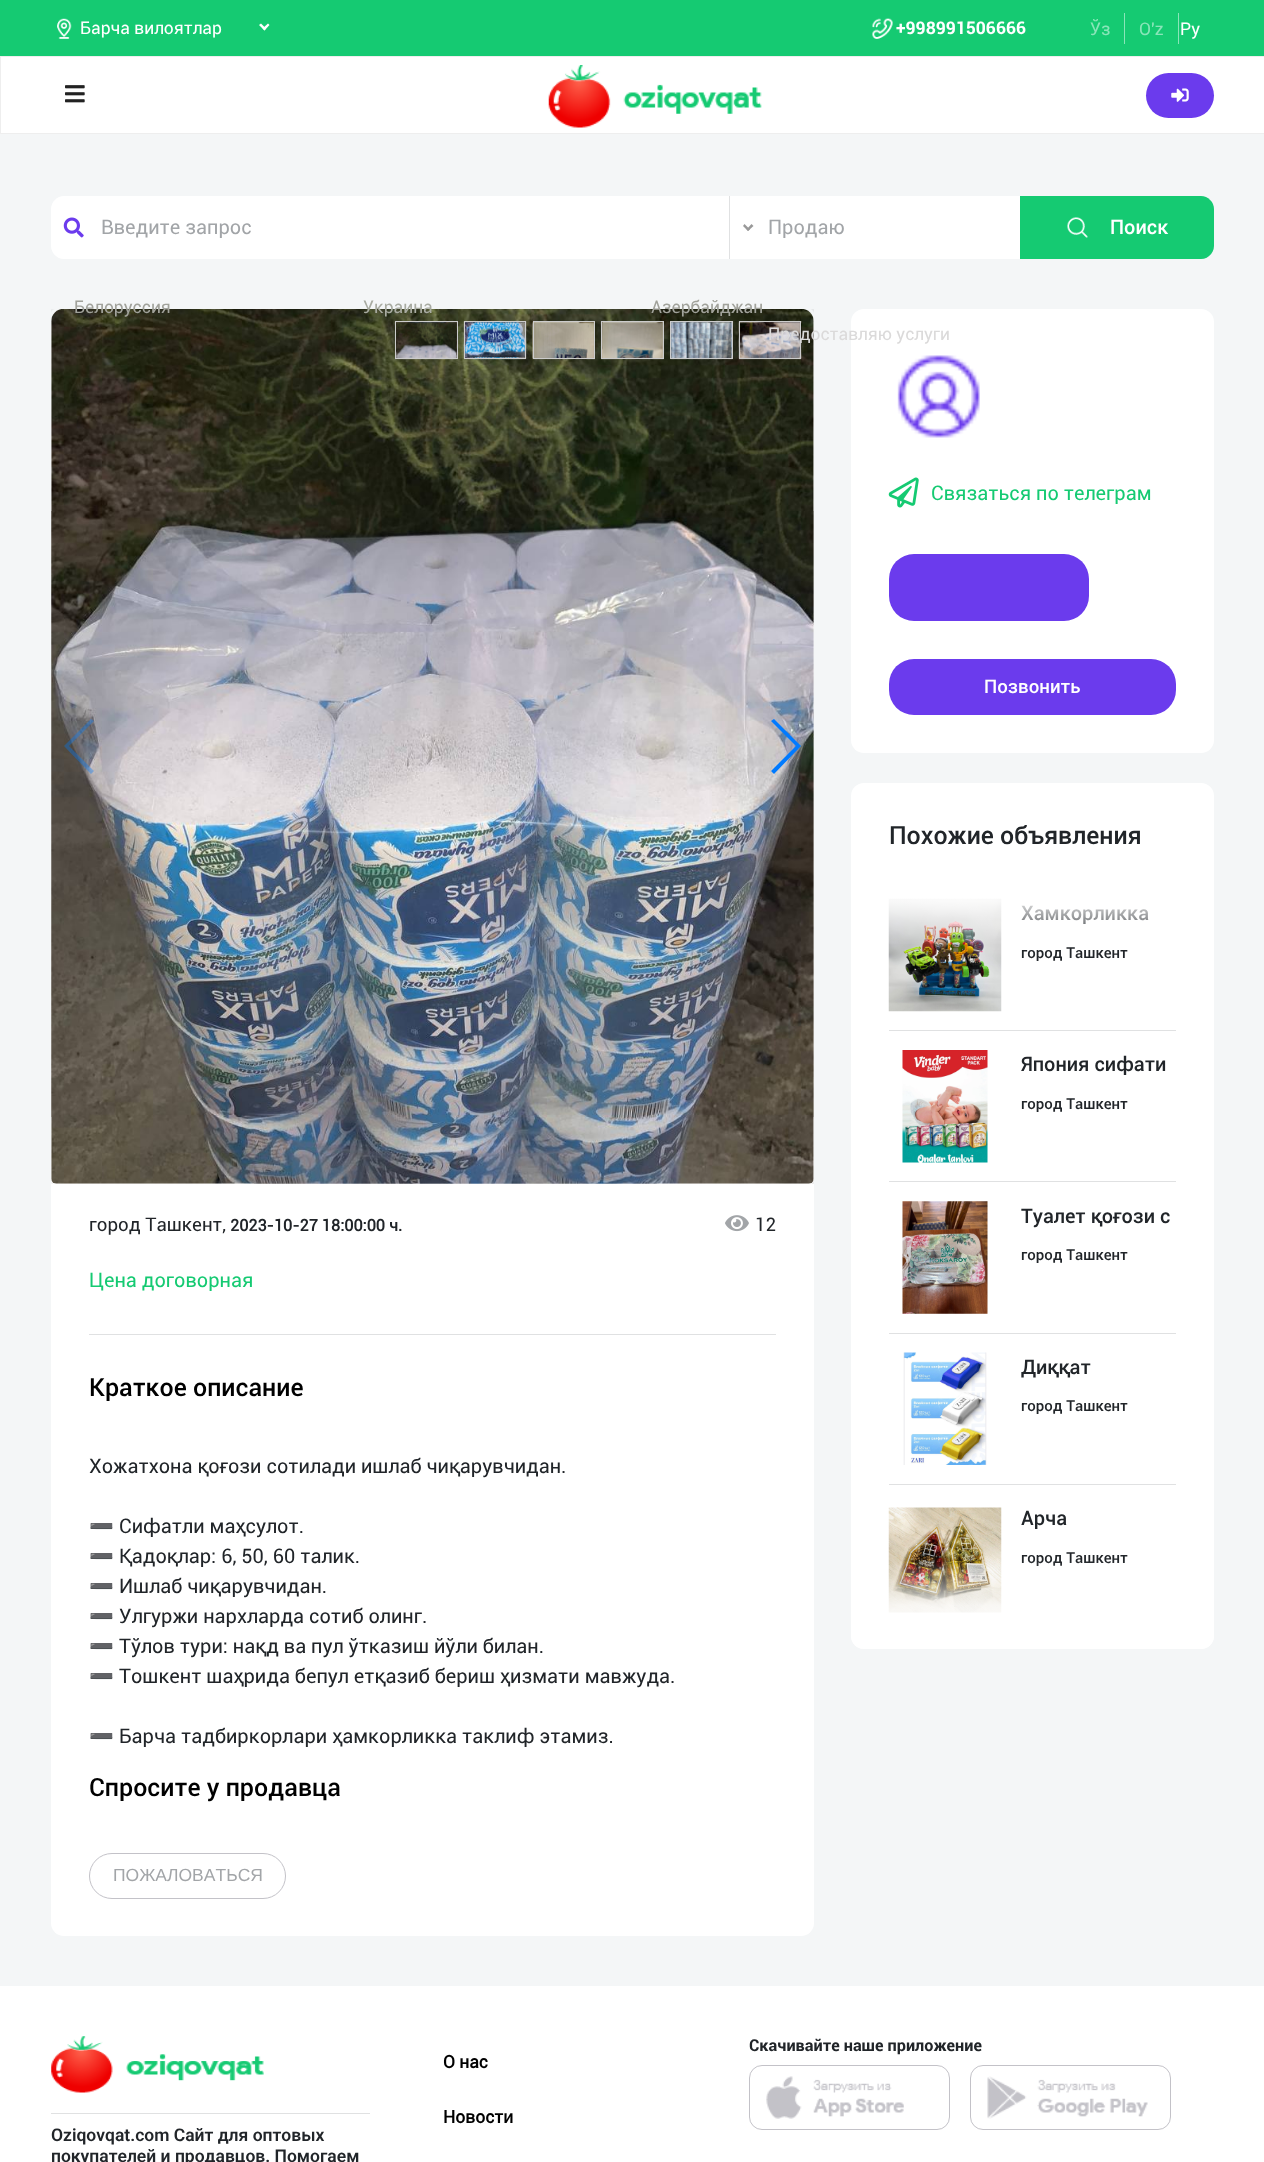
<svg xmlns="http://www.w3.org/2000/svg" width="1264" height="2162">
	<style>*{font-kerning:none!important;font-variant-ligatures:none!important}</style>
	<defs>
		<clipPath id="clip1"><rect x="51" y="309" width="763" height="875" /></clipPath>
		<clipPath id="clip2"><path d="M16 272H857V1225H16ZM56 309H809C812 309 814 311 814 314V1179C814 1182 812 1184 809 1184H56C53 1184 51 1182 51 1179V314C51 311 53 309 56 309Z" clip-rule="evenodd" /></clipPath>
		<linearGradient id="g1" gradientUnits="userSpaceOnUse" x1="1033" y1="858" x2="1033" y2="945"><stop offset="0" stop-color="#FFFFFF" /><stop offset="0.25" stop-color="#FFFFFF" /><stop offset="0.5" stop-color="#FFFFFF" stop-opacity="0.85" /><stop offset="0.7" stop-color="#FFFFFF" stop-opacity="0.5" /><stop offset="1" stop-color="#FFFFFF" stop-opacity="0" /></linearGradient>
		<linearGradient id="g2" gradientUnits="userSpaceOnUse" x1="1033" y1="1649" x2="1033" y2="1561"><stop offset="0" stop-color="#FFFFFF" /><stop offset="0.25" stop-color="#FFFFFF" /><stop offset="0.5" stop-color="#FFFFFF" stop-opacity="0.85" /><stop offset="0.7" stop-color="#FFFFFF" stop-opacity="0.5" /><stop offset="1" stop-color="#FFFFFF" stop-opacity="0" /></linearGradient>
	</defs>
	<rect width="100%" height="100%" fill="#F4F6F7" />
	<rect x="0" y="0" width="1264" height="56" fill="#15CA72" />
	<image x="57" y="18" width="15" height="21" href="assets/img1.png" />
	<text x="80" y="34" font-family="Roboto" font-size="17.5" fill="#FFFFFF">Барча вилоятлар</text>
	<path d="M268 23.5L269.5 25L264.5 30.5L262.5 28.5Z" fill="#FFFFFF" />
	<path d="M261 23.5L266 28.5L264.5 30.5L259 25Z" fill="#FFFFFF" />
	<rect x="51" y="309" width="763" height="1627" rx="13" fill="#FFFFFF" />
	<image x="725" y="1215" width="24" height="17" href="assets/img15.png" />
	<g clip-path="url(#clip1)">
		<g clip-path="url(#clip2)">
			<rect x="55" y="311" width="763" height="875" rx="5" fill="#000000" fill-opacity="0.2" filter="blur(12.5px)" />
		</g>
	</g>
	<image x="51" y="309" width="763" height="875" href="assets/img8.png" />
	<text x="74" y="313" font-family="Roboto" font-size="17.5" fill="#A1A29B">Белоруссия</text>
	<text x="363" y="313" font-family="Roboto" font-size="17.5" fill="#A8ABA1">Украина</text>
	<text x="651" y="313" font-family="Roboto" font-size="17.5" fill="#A1A29B">Азербайджан</text>
	<image x="872" y="18" width="21" height="21" href="assets/img2.png" />
	<text x="896" y="34" font-family="'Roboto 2'" font-size="17.5" font-weight="700" fill="#FFFFFF">+998991506666</text>
	<text x="1090" y="35" font-family="Roboto" font-size="17.5" fill="#8AE5B9">Ўз</text>
	<rect x="1178" y="13" width="1" height="31" fill="#8AE5B9" />
	<rect x="1124" y="13" width="1" height="31" fill="#8AE5B9" />
	<text x="1139" y="35" font-family="Roboto" font-size="17.5" fill="#8AE5B9">O'z</text>
	<text x="1180" y="35" font-family="Roboto" font-size="17.5" fill="#FFFFFF">Ру</text>
	<rect x="0.5" y="56.5" width="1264" height="77" fill="#FFFFFF" stroke="#EEEEEE" />
	<image x="65" y="85" width="20" height="18" href="assets/img3.png" />
	<image x="548" y="65" width="214" height="63" href="assets/img4.png" />
	<rect x="1146" y="73" width="68" height="45" rx="22.5" fill="#6B3BED" />
	<image x="1171" y="88" width="18" height="14" href="assets/img5.png" />
	<path d="M64 196H729V259H64C57 259 51 253 51 246V209C51 202 57 196 64 196Z" fill="#FFFFFF" />
	<image x="63" y="217" width="21" height="21" href="assets/img6.png" />
	<text x="101" y="234" font-family="Roboto" font-size="20" fill="#A2A5A8">Введите запрос</text>
	<rect x="730" y="196" width="290" height="63" fill="#FFFFFF" />
	<rect x="729" y="196" width="1" height="63" fill="#E0E1E2" />
	<path d="M751.5 224L753.5 226L748 231L746.5 229.5Z" fill="#999999" />
	<path d="M744.5 224L750 229.5L748 231L743 226Z" fill="#999999" />
	<text x="768" y="234" font-family="Roboto" font-size="20" fill="#A2A5A8">Продаю</text>
	<image x="738" y="321" width="64" height="39" href="assets/img14.png" />
	<rect x="739.5" y="321.5" width="61" height="37" fill="none" stroke="#CCCCCC" />
	<rect x="851" y="309" width="363" height="444" rx="13" fill="#FFFFFF" />
	<text x="768" y="340" font-family="Roboto" font-size="17.5" fill="#DBDADA">Предоставляю услуги</text>
	<path d="M1020 196H1201C1208 196 1214 202 1214 209V246C1214 253 1208 259 1201 259H1020Z" fill="#15CA72" />
	<image x="1067" y="217" width="21" height="21" href="assets/img7.png" />
	<text x="1110" y="234" font-family="Roboto" font-size="20" font-weight="500" fill="#FFFFFF">Поиск</text>
	<image x="395" y="322" width="63" height="38" href="assets/img9.png" />
	<rect x="395.5" y="321.5" width="62" height="37" fill="none" stroke="#CCCCCC" />
	<image x="463" y="321" width="64" height="39" href="assets/img10.png" />
	<rect x="464.5" y="321.5" width="61" height="37" fill="none" stroke="#CCCCCC" />
	<image x="532" y="321" width="63" height="39" href="assets/img11.png" />
	<rect x="533.5" y="321.5" width="61" height="37" fill="none" stroke="#CCCCCC" />
	<image x="601" y="322" width="63" height="38" href="assets/img12.png" />
	<rect x="601.5" y="321.5" width="62" height="37" fill="none" stroke="#CCCCCC" />
	<image x="670" y="322" width="63" height="38" href="assets/img13.png" />
	<rect x="670.5" y="321.5" width="62" height="37" fill="none" stroke="#CCCCCC" />
	<path d="M64 746L91 719L94 721L69 746L94 771L91 774Z" fill="#007AFF" fill-opacity="0.35" />
	<path d="M801 746L774 774L771 771L796 746L771 721L774 719Z" fill="#007AFF" />
	<text x="89" y="1231" font-family="Roboto" font-size="18.75" fill="#212529">город Ташкент,</text>
	<text x="230" y="1231" font-family="Roboto" font-size="16.25" font-weight="700" fill="#212529">2023-10-27 18:00:00 ч.</text>
	<text x="755" y="1231" font-family="Roboto" font-size="18.75" fill="#212529">12</text>
	<text x="89" y="1287" font-family="Roboto" font-size="20" fill="#15CA72">Цена договорная</text>
	<rect x="89" y="1334" width="687" height="1" fill="#E0E1E2" />
	<text x="89" y="1396" font-family="Roboto" font-size="25" font-weight="500" fill="#000000">Краткое описание</text>
	<text x="89" y="1473" font-family="Roboto" font-size="20" fill="#212529">Хожатхона қоғози сотилади ишлаб чиқарувчидан.</text>
	<text x="89" y="1533" font-family="Noto Color Emoji" font-size="20" fill="#212529">➖</text>
	<text x="119" y="1533" font-family="Roboto" font-size="20" fill="#212529">Сифатли маҳсулот.</text>
	<text x="89" y="1563" font-family="Noto Color Emoji" font-size="20" fill="#212529">➖</text>
	<text x="119" y="1563" font-family="Roboto" font-size="20" fill="#212529">Қадоқлар: 6, 50, 60 талик.</text>
	<text x="89" y="1593" font-family="Noto Color Emoji" font-size="20" fill="#212529">➖</text>
	<text x="119" y="1593" font-family="Roboto" font-size="20" fill="#212529">Ишлаб чиқарувчидан.</text>
	<text x="89" y="1623" font-family="Noto Color Emoji" font-size="20" fill="#212529">➖</text>
	<text x="119" y="1623" font-family="Roboto" font-size="20" fill="#212529">Улгуржи нархларда сотиб олинг.</text>
	<text x="89" y="1653" font-family="Noto Color Emoji" font-size="20" fill="#212529">➖</text>
	<text x="119" y="1653" font-family="Roboto" font-size="20" fill="#212529">Тўлов тури: нақд ва пул ўтказиш йўли билан.</text>
	<text x="89" y="1683" font-family="Noto Color Emoji" font-size="20" fill="#212529">➖</text>
	<text x="119" y="1683" font-family="Roboto" font-size="20" fill="#212529">Тошкент шаҳрида бепул етқазиб бериш ҳизмати мавжуда.</text>
	<text x="89" y="1743" font-family="Noto Color Emoji" font-size="20" fill="#212529">➖</text>
	<text x="119" y="1743" font-family="Roboto" font-size="20" fill="#212529">Барча тадбиркорлари ҳамкорликка таклиф этамиз.</text>
	<text x="89" y="1796" font-family="Roboto" font-size="25" font-weight="500" fill="#000000">Спросите у продавца</text>
	<rect x="89.5" y="1853.5" width="196" height="45" rx="22.5" fill="none" stroke="#C3C2C8" />
	<text x="113" y="1881" font-family="Liberation Sans" font-size="17.5" fill="#A2A5A8">ПОЖАЛОВАТЬСЯ</text>
	<image x="897" y="355" width="83" height="83" href="assets/img16.png" />
	<image x="888" y="477" width="31" height="31" href="assets/img17.png" />
	<text x="931" y="500" font-family="Roboto" font-size="20" fill="#15CA72">Связаться по телеграм</text>
	<rect x="889" y="554" width="200" height="67" rx="25" fill="#6B3BED" />
	<rect x="889" y="659" width="287" height="56" rx="25" fill="#6B3BED" />
	<text x="984" y="693" font-family="Roboto" font-size="18.75" font-weight="500" fill="#FFFFFF">Позвонить</text>
	<rect x="851" y="783" width="363" height="866" rx="13" fill="#FFFFFF" />
	<text x="889" y="844" font-family="Roboto" font-size="25" font-weight="500" fill="#212529">Похожие объявления</text>
	<image x="888" y="898" width="114" height="114" href="assets/img18.png" />
	<text x="1021" y="920" font-family="Roboto" font-size="20" font-weight="500" fill="#212529">Хамкорликка</text>
	<rect x="888" y="898" width="261" height="46" fill="url(#g1)" />
	<text x="1021" y="958" font-family="Roboto" font-size="15" font-weight="500" fill="#212529">город Ташкент</text>
	<rect x="889" y="1030" width="287" height="1" fill="#E0E1E2" />
	<image x="902" y="1050" width="86" height="113" href="assets/img19.png" />
	<text x="1021" y="1071" font-family="Roboto" font-size="20" font-weight="500" fill="#212529">Япония сифати</text>
	<text x="1021" y="1109" font-family="Roboto" font-size="15" font-weight="500" fill="#212529">город Ташкент</text>
	<rect x="889" y="1181" width="287" height="1" fill="#E0E1E2" />
	<image x="902" y="1201" width="86" height="113" href="assets/img20.png" />
	<text x="1021" y="1223" font-family="Roboto" font-size="20" font-weight="500" fill="#212529">Туалет қоғози с</text>
	<text x="1021" y="1260" font-family="Roboto" font-size="15" font-weight="500" fill="#212529">город Ташкент</text>
	<rect x="889" y="1333" width="287" height="1" fill="#E0E1E2" />
	<image x="903" y="1352" width="84" height="113" href="assets/img21.png" />
	<text x="1021" y="1374" font-family="Roboto" font-size="20" font-weight="500" fill="#212529">Диққат</text>
	<text x="1021" y="1411" font-family="Roboto" font-size="15" font-weight="500" fill="#212529">город Ташкент</text>
	<rect x="889" y="1484" width="287" height="1" fill="#E0E1E2" />
	<image x="888" y="1507" width="114" height="106" href="assets/img22.png" />
	<text x="1021" y="1525" font-family="Roboto" font-size="20" font-weight="500" fill="#212529">Арча</text>
	<text x="1021" y="1563" font-family="Roboto" font-size="15" font-weight="500" fill="#212529">город Ташкент</text>
	<path d="M851 1561H1214V1636C1214 1643 1208 1649 1201 1649H864C857 1649 851 1643 851 1636Z" fill="url(#g2)" />
	<rect x="0" y="1986" width="1264" height="176" fill="#FFFFFF" />
	<text x="749" y="2051" font-family="'Roboto 2'" font-size="16.25" font-weight="700" fill="#212529">Скачивайте наше приложение</text>
	<rect x="749.5" y="2065.5" width="200" height="64" rx="12.5" fill="none" stroke="#C3C2C8" />
	<image x="766" y="2076" width="138" height="43" href="assets/img23.png" />
	<rect x="970.5" y="2065.5" width="200" height="64" rx="12.5" fill="none" stroke="#C3C2C8" />
	<image x="987" y="2076" width="161" height="43" href="assets/img24.png" />
	<g font-family="Roboto" font-size="17.5" font-weight="700" fill="#000000">
		<text x="443" y="2068">О нас</text>
		<text x="443" y="2123">Новости</text>
	</g>
	<rect x="51" y="2113" width="319" height="1" fill="#E0E1E2" />
	<image x="51" y="2036" width="213" height="57" href="assets/img25.png" />
	<g font-family="Roboto" font-size="17.5" font-weight="600" fill="#212529">
		<text x="51" y="2141">Oziqovqat.com Сайт для оптовых</text>
		<text x="51" y="2162">покупателей и продавцов. Помогаем</text>
	</g>
</svg>
